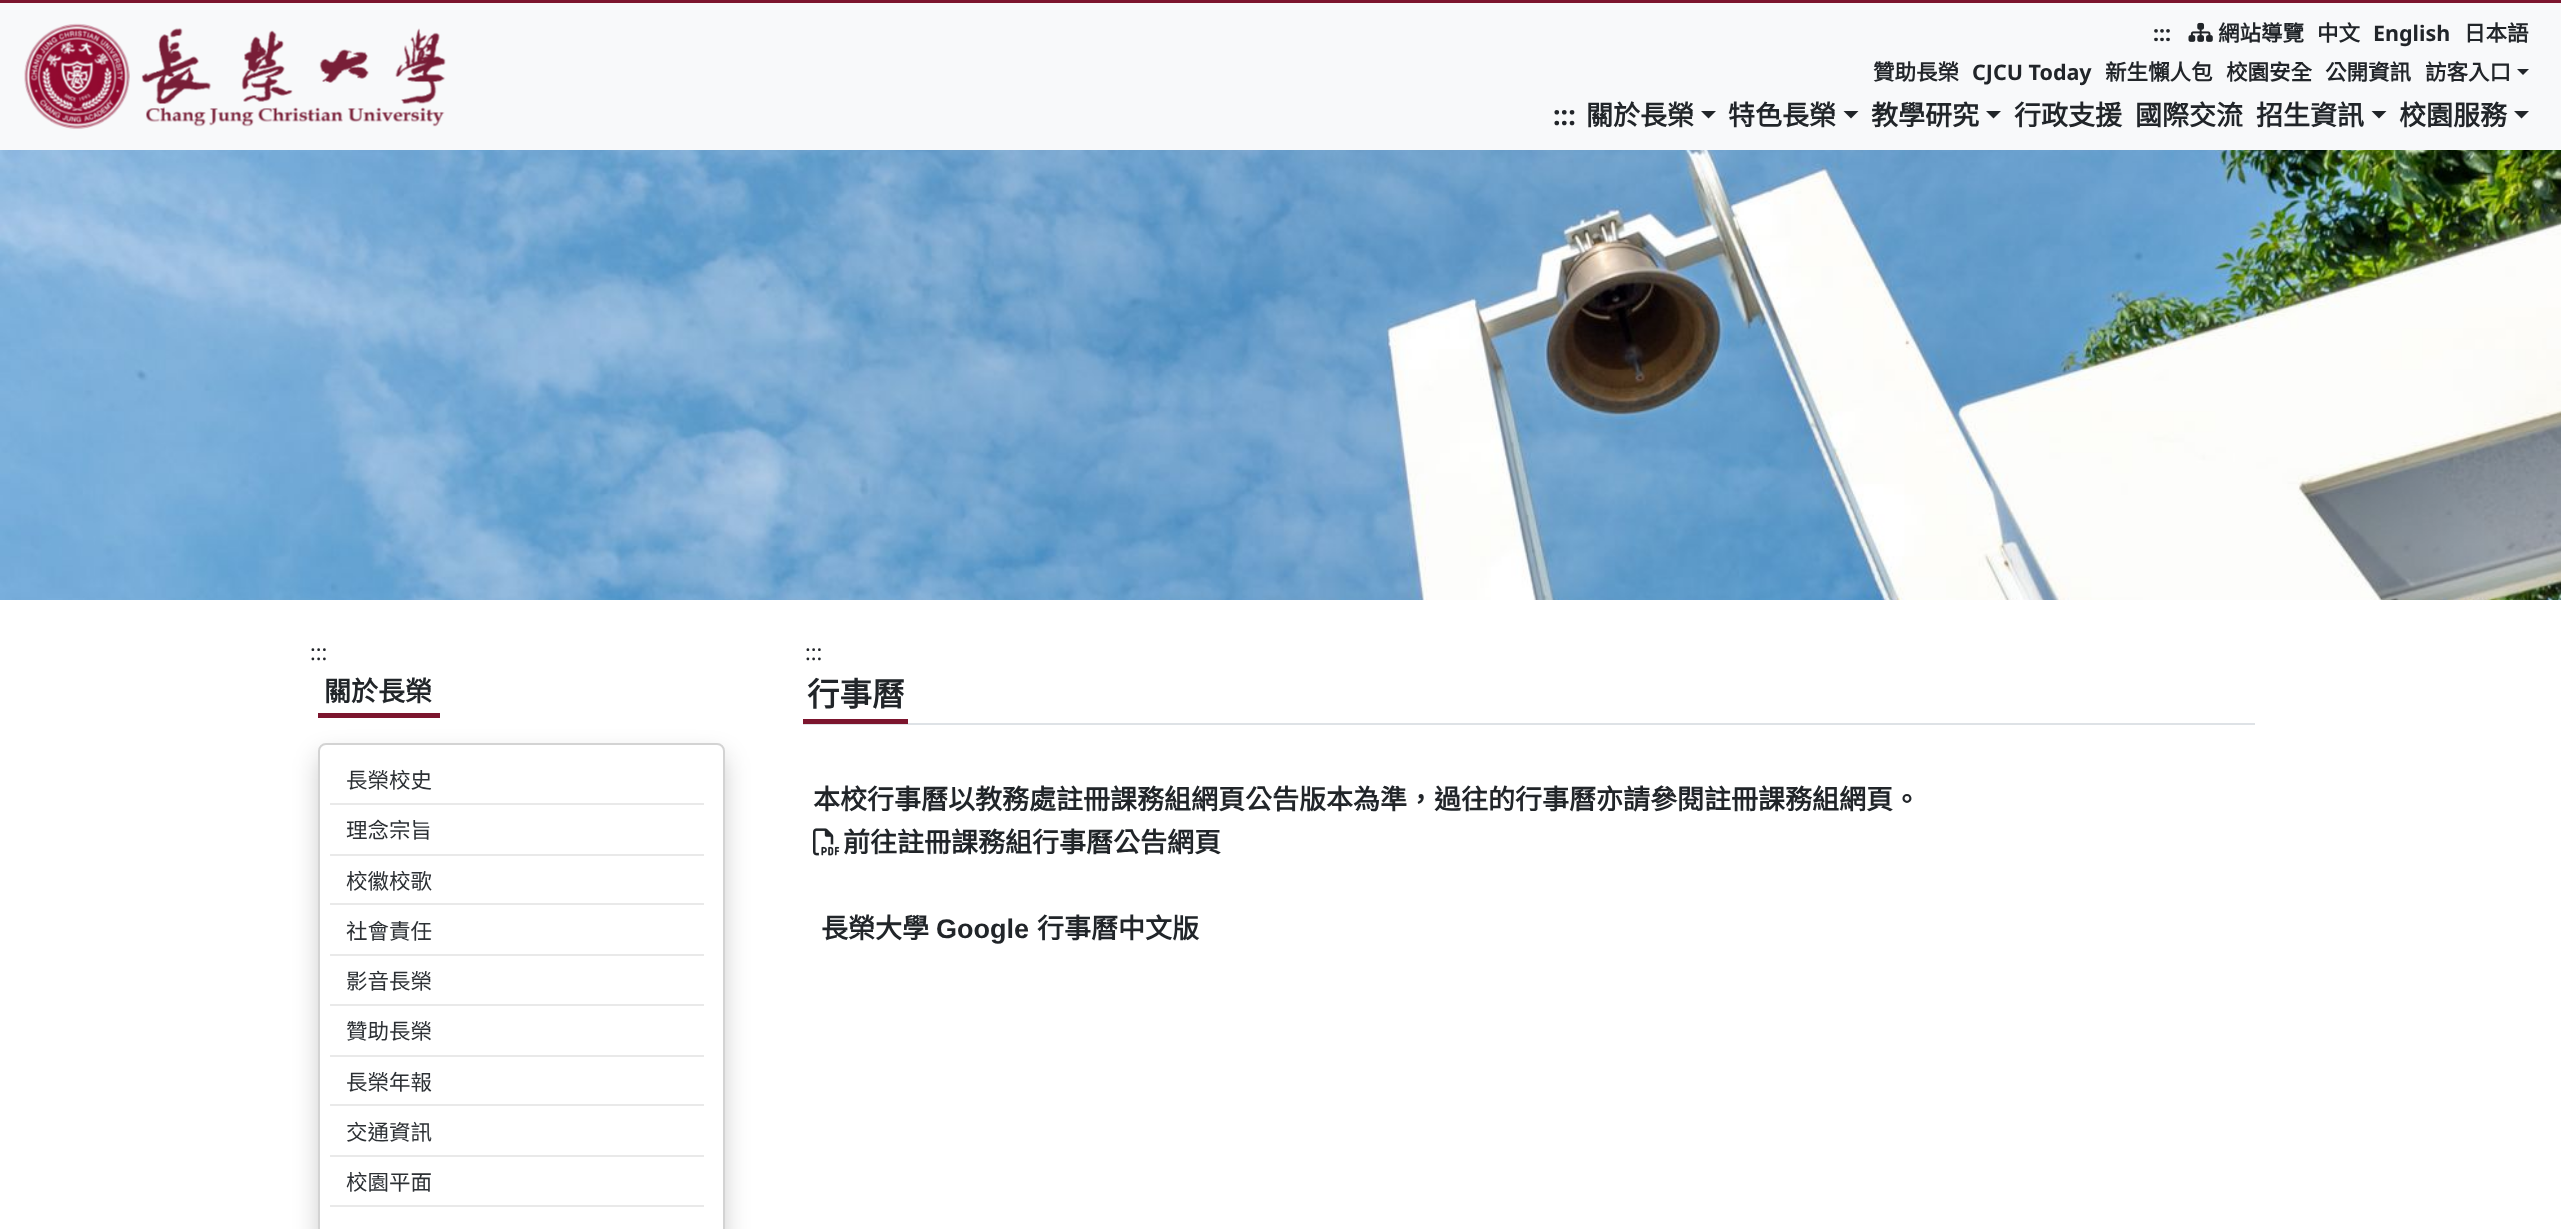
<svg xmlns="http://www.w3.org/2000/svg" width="2561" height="1229">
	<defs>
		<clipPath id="clip1"><path d="M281 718H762V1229H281ZM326 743H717C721.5 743 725 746.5 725 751V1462C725 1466.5 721.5 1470 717 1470H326C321.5 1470 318 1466.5 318 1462V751C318 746.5 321.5 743 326 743Z" clip-rule="evenodd" /></clipPath>
	</defs>
	<rect width="100%" height="100%" fill="#FFFFFF" />
	<rect x="0" y="3" width="2561" height="147" fill="#F8F9FA" />
	<rect x="0" y="0" width="2561" height="3" fill="#7C152E" />
	<image x="24" y="23" width="106" height="106" href="assets/img1.png" />
	<image x="141" y="28" width="305" height="99" href="assets/img2.png" />
	<text x="2153" y="41" font-family="Noto Sans" font-size="21.5" font-weight="700" fill="#212529">:::</text>
	<image x="2188" y="22" width="25" height="20" href="assets/img3.png" />
	<g font-family="Noto Sans CJK TC" font-size="21.5" font-weight="700" fill="#212529">
		<text x="2218" y="41">網站導覽</text>
		<text x="2317" y="41">中文</text>
	</g>
	<text x="2373" y="41" font-family="Noto Sans" font-size="21.5" font-weight="700" fill="#212529">English</text>
	<g font-family="Noto Sans CJK TC" font-size="21.5" font-weight="700" fill="#212529">
		<text x="2464" y="41">日本語</text>
		<text x="1873" y="80">贊助長榮</text>
	</g>
	<text x="1972" y="80" font-family="Noto Sans" font-size="21.5" font-weight="700" fill="#212529">CJCU Today</text>
	<g font-family="Noto Sans CJK TC" font-size="21.5" font-weight="700" fill="#212529">
		<text x="2105" y="80">新生懶人包</text>
		<text x="2226" y="80">校園安全</text>
		<text x="2325" y="80">公開資訊</text>
		<text x="2425" y="80">訪客入口</text>
	</g>
	<path d="M2517 69H2529L2523 75Z" fill="#212529" />
	<text x="1553" y="125" font-family="Noto Sans" font-size="27" font-weight="700" fill="#212529">:::</text>
	<text x="1586" y="125" font-family="Noto Sans CJK TC" font-size="27" font-weight="700" fill="#212529">關於長榮</text>
	<path d="M1701 111H1716L1708.5 118.5Z" fill="#212529" />
	<text x="1728" y="125" font-family="Noto Sans CJK TC" font-size="27" font-weight="700" fill="#212529">特色長榮</text>
	<path d="M1843.5 111H1858.5L1851 118.5Z" fill="#212529" />
	<text x="1871" y="125" font-family="Noto Sans CJK TC" font-size="27" font-weight="700" fill="#212529">教學研究</text>
	<path d="M1986 111H2001L1993.5 118.5Z" fill="#212529" />
	<g font-family="Noto Sans CJK TC" font-size="27" font-weight="700" fill="#212529">
		<text x="2014" y="125">行政支援</text>
		<text x="2135" y="125">國際交流</text>
		<text x="2256" y="125">招生資訊</text>
	</g>
	<path d="M2371.5 111H2386.5L2379 118.5Z" fill="#212529" />
	<text x="2399" y="125" font-family="Noto Sans CJK TC" font-size="27" font-weight="700" fill="#212529">校園服務</text>
	<path d="M2514 111H2529L2521.5 118.5Z" fill="#212529" />
	<image x="0" y="150" width="2561" height="450" href="assets/img4.png" />
	<text x="310" y="660" font-family="Noto Sans" font-size="21.5" fill="#212529">:::</text>
	<text x="324" y="701" font-family="Noto Sans CJK TC" font-size="27" font-weight="700" fill="#212529">關於長榮</text>
	<rect x="318" y="713" width="122" height="5" fill="#7C152E" />
	<g clip-path="url(#clip1)">
		<rect x="318" y="755" width="407" height="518" rx="8" fill="#0D0D0D" fill-opacity="0.2" filter="blur(12px)" />
	</g>
	<rect x="319" y="744" width="405" height="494" rx="7" fill="none" stroke="#0D0D0D" stroke-opacity="0.18" stroke-width="2" />
	<rect x="330" y="803" width="374" height="2" fill="#E9E9E9" />
	<text x="346" y="788" font-family="Noto Sans CJK TC" font-size="21.5" fill="#2C3034">長榮校史</text>
	<rect x="330" y="854" width="374" height="2" fill="#E9E9E9" />
	<text x="346" y="838" font-family="Noto Sans CJK TC" font-size="21.5" fill="#2C3034">理念宗旨</text>
	<rect x="330" y="903" width="374" height="2" fill="#E9E9E9" />
	<text x="346" y="889" font-family="Noto Sans CJK TC" font-size="21.5" fill="#2C3034">校徽校歌</text>
	<rect x="330" y="954" width="374" height="2" fill="#E9E9E9" />
	<text x="346" y="939" font-family="Noto Sans CJK TC" font-size="21.5" fill="#2C3034">社會責任</text>
	<rect x="330" y="1004" width="374" height="2" fill="#E9E9E9" />
	<text x="346" y="989" font-family="Noto Sans CJK TC" font-size="21.5" fill="#2C3034">影音長榮</text>
	<rect x="330" y="1055" width="374" height="2" fill="#E9E9E9" />
	<text x="346" y="1039" font-family="Noto Sans CJK TC" font-size="21.5" fill="#2C3034">贊助長榮</text>
	<rect x="330" y="1104" width="374" height="2" fill="#E9E9E9" />
	<text x="346" y="1090" font-family="Noto Sans CJK TC" font-size="21.5" fill="#2C3034">長榮年報</text>
	<rect x="330" y="1155" width="374" height="2" fill="#E9E9E9" />
	<text x="346" y="1140" font-family="Noto Sans CJK TC" font-size="21.5" fill="#2C3034">交通資訊</text>
	<rect x="330" y="1205" width="374" height="2" fill="#E9E9E9" />
	<text x="346" y="1190" font-family="Noto Sans CJK TC" font-size="21.5" fill="#2C3034">校園平面</text>
	<text x="805" y="660" font-family="Noto Sans" font-size="21.5" fill="#212529">:::</text>
	<rect x="803" y="723" width="1452" height="2" fill="#DEE2E6" />
	<rect x="803" y="719" width="105" height="5" fill="#7C152E" />
	<text x="807" y="706" font-family="Noto Sans CJK TC" font-size="32.5" font-weight="700" fill="#212529">行事曆</text>
	<text x="813" y="809" font-family="Noto Sans CJK TC" font-size="27" font-weight="700" fill="#212529">本校行事曆以教務處註冊課務組網頁公告版本為準，過往的行事曆亦請參閱註冊課務組網頁。</text>
	<image x="813" y="828" width="27" height="28" href="assets/img5.png" />
	<g font-family="Noto Sans CJK TC" font-size="27" font-weight="700" fill="#212529">
		<text x="843" y="852">前往註冊課務組行事曆公告網頁</text>
		<text x="821" y="938">長榮大學</text>
	</g>
	<text x="936" y="938" font-family="Liberation Sans" font-size="27" font-weight="700" fill="#212529">Google</text>
	<text x="1037" y="938" font-family="Noto Sans CJK TC" font-size="27" font-weight="700" fill="#212529">行事曆中文版</text>
</svg>
